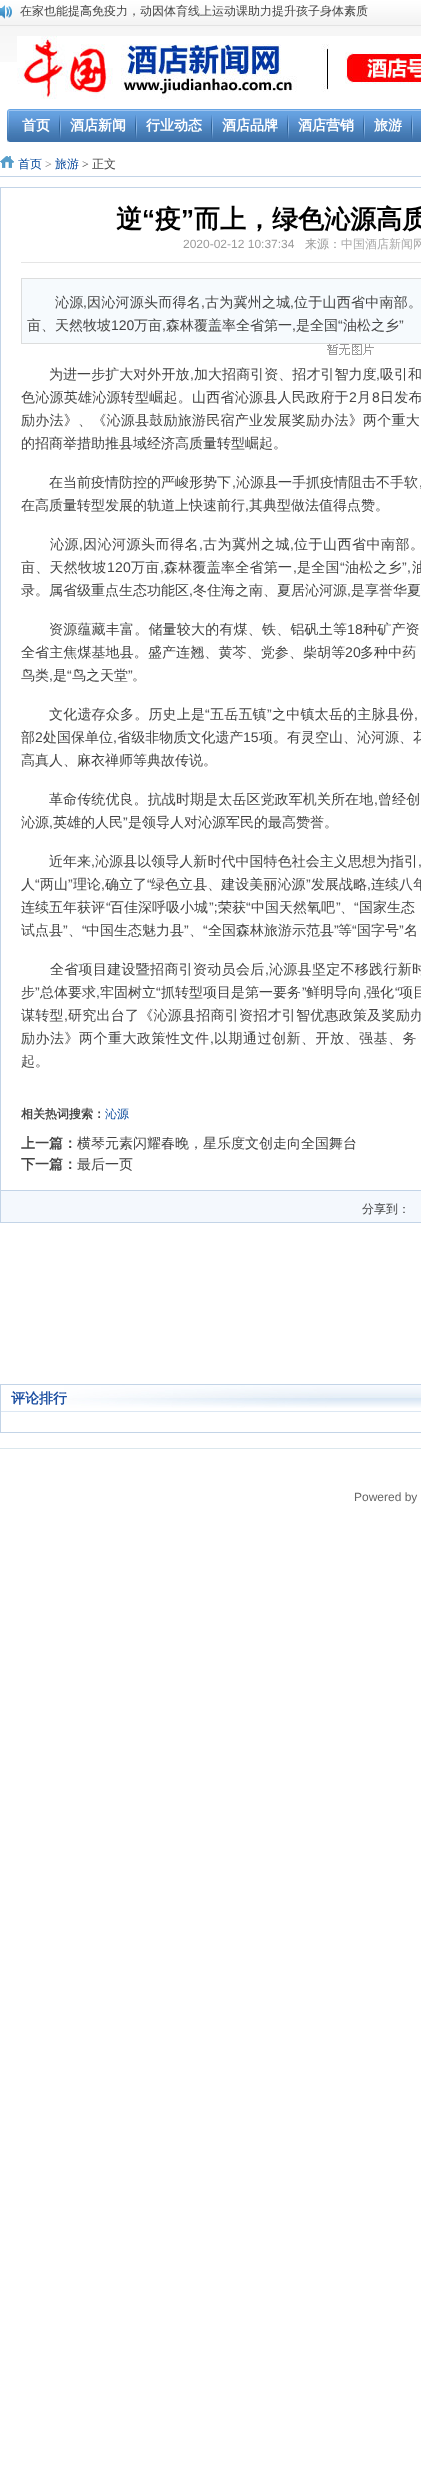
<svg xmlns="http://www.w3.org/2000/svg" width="421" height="2477">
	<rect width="100%" height="100%" fill="#FFFFFF" />
	<image x="0" y="0" width="421" height="26" href="assets/img1.png" />
	<image x="0" y="5" width="12" height="14" href="assets/img2.png" />
	<text x="20" y="15" font-family="WenQuanYi Zen Hei" font-size="12" font-weight="500" fill="#444444">在家也能提高免疫力，动因体育线上运动课助力提升孩子身体素质</text>
	<image x="0" y="26" width="421" height="36" href="assets/img3.png" />
	<image x="17" y="36" width="404" height="63" href="assets/img4.png" />
	<image x="7" y="109" width="8" height="33" href="assets/img5.png" />
	<image x="15" y="109" width="406" height="33" href="assets/img6.png" />
	<text x="22" y="130" font-family="WenQuanYi Zen Hei" font-size="14" font-weight="700" fill="#FFFFFF">首页</text>
	<image x="59" y="115" width="2" height="24" href="assets/img7.png" />
	<text x="70" y="130" font-family="WenQuanYi Zen Hei" font-size="14" font-weight="700" fill="#FFFFFF">酒店新闻</text>
	<image x="135" y="115" width="2" height="24" href="assets/img7.png" />
	<text x="146" y="130" font-family="WenQuanYi Zen Hei" font-size="14" font-weight="700" fill="#FFFFFF">行业动态</text>
	<image x="211" y="115" width="2" height="24" href="assets/img7.png" />
	<text x="222" y="130" font-family="WenQuanYi Zen Hei" font-size="14" font-weight="700" fill="#FFFFFF">酒店品牌</text>
	<image x="287" y="115" width="2" height="24" href="assets/img7.png" />
	<text x="298" y="130" font-family="WenQuanYi Zen Hei" font-size="14" font-weight="700" fill="#FFFFFF">酒店营销</text>
	<image x="363" y="115" width="2" height="24" href="assets/img7.png" />
	<text x="374" y="130" font-family="WenQuanYi Zen Hei" font-size="14" font-weight="700" fill="#FFFFFF">旅游</text>
	<image x="411" y="115" width="2" height="24" href="assets/img7.png" />
	<image x="0" y="156" width="14" height="12" href="assets/img8.png" />
	<rect x="0" y="176" width="421" height="1" fill="#C3D4E7" />
	<text x="18" y="168" font-family="WenQuanYi Zen Hei" font-size="12" font-weight="500" fill="#004499">首页</text>
	<text x="45" y="168" font-family="Liberation Serif" font-size="12" fill="#7E7E7E">&gt;</text>
	<text x="55" y="168" font-family="WenQuanYi Zen Hei" font-size="12" font-weight="500" fill="#004499">旅游</text>
	<text x="82" y="168" font-family="Liberation Serif" font-size="12" fill="#444444">&gt;</text>
	<text x="92" y="168" font-family="WenQuanYi Zen Hei" font-size="12" font-weight="500" fill="#444444">正文</text>
	<rect x="0.5" y="187.5" width="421" height="1003" fill="none" stroke="#C3D4E7" />
	<rect x="21" y="262" width="400" height="1" fill="#E5E5E5" />
	<text x="116" y="228" font-family="WenQuanYi Zen Hei" font-size="26" font-weight="700" fill="#000000">逆</text>
	<text x="142" y="228" font-family="Liberation Sans" font-size="26" font-weight="700" fill="#000000">“</text>
	<text x="155" y="228" font-family="WenQuanYi Zen Hei" font-size="26" font-weight="700" fill="#000000">疫</text>
	<text x="181" y="228" font-family="Liberation Sans" font-size="26" font-weight="700" fill="#000000">”</text>
	<text x="194" y="228" font-family="WenQuanYi Zen Hei" font-size="26" font-weight="700" fill="#000000">而上，绿色沁源高质</text>
	<text x="183" y="248" font-family="Liberation Sans" font-size="12" fill="#999999">2020-02-12 10:37:34</text>
	<text x="305" y="248" font-family="WenQuanYi Zen Hei" font-size="12" font-weight="500" fill="#999999">来源：</text>
	<text x="341" y="248" font-family="WenQuanYi Zen Hei" font-size="12" font-weight="500" fill="#AAAAAA">中国酒店新闻网</text>
	<rect x="21.5" y="278.5" width="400" height="65" fill="#F6FAFD" stroke="#DCDDDD" />
	<text x="55" y="307" font-family="WenQuanYi Zen Hei" font-size="14" font-weight="500" letter-spacing="0.25" fill="#444444">沁源</text>
	<text x="83" y="307" font-family="Liberation Sans" font-size="14" letter-spacing="0.25" fill="#444444">,</text>
	<text x="87" y="307" font-family="WenQuanYi Zen Hei" font-size="14" font-weight="500" letter-spacing="0.25" fill="#444444">因沁河源头而得名</text>
	<text x="201" y="307" font-family="Liberation Sans" font-size="14" letter-spacing="0.25" fill="#444444">,</text>
	<text x="205" y="307" font-family="WenQuanYi Zen Hei" font-size="14" font-weight="500" letter-spacing="0.25" fill="#444444">古为冀州之城</text>
	<text x="290" y="307" font-family="Liberation Sans" font-size="14" letter-spacing="0.25" fill="#444444">,</text>
	<text x="294" y="307" font-family="WenQuanYi Zen Hei" font-size="14" font-weight="500" letter-spacing="0.25" fill="#444444">位于山西省中南部。</text>
	<text x="27" y="330" font-family="WenQuanYi Zen Hei" font-size="14" font-weight="500" fill="#444444">亩、天然牧坡</text>
	<text x="111" y="330" font-family="Liberation Sans" font-size="14" fill="#444444">120</text>
	<g font-family="WenQuanYi Zen Hei" font-size="14" font-weight="500" fill="#444444">
		<text x="134" y="330">万亩</text>
		<text x="166" y="330">森林覆盖率全省第一</text>
		<text x="296" y="330">是全国</text>
	</g>
	<text x="338" y="330" font-family="Liberation Sans" font-size="14" fill="#444444">“</text>
	<text x="343" y="330" font-family="WenQuanYi Zen Hei" font-size="14" font-weight="500" fill="#444444">油松之乡</text>
	<g font-family="Liberation Sans" font-size="14" fill="#444444">
		<text x="399" y="330">”</text>
		<text x="162" y="330">,</text>
		<text x="292" y="330">,</text>
	</g>
	<image x="327" y="344" width="47" height="11" href="assets/img9.png" />
	<text x="49" y="379" font-family="WenQuanYi Zen Hei" font-size="14" font-weight="500" letter-spacing="0.05" fill="#444444">为进一步扩大对外开放</text>
	<text x="190" y="379" font-family="Liberation Sans" font-size="14" letter-spacing="0.05" fill="#444444">,</text>
	<text x="194" y="379" font-family="WenQuanYi Zen Hei" font-size="14" font-weight="500" letter-spacing="0.05" fill="#444444">加大招商引资、招才引智力度</text>
	<text x="376" y="379" font-family="Liberation Sans" font-size="14" letter-spacing="0.05" fill="#444444">,</text>
	<text x="380" y="379" font-family="WenQuanYi Zen Hei" font-size="14" font-weight="500" letter-spacing="0.05" fill="#444444">吸引和</text>
	<text x="21" y="402" font-family="WenQuanYi Zen Hei" font-size="14" font-weight="500" letter-spacing="0.25" fill="#444444">色沁源英雄沁源转型崛起。山西省沁源县人民政府于</text>
	<text x="349" y="402" font-family="Liberation Sans" font-size="14" letter-spacing="0.25" fill="#444444">2</text>
	<text x="357" y="402" font-family="WenQuanYi Zen Hei" font-size="14" font-weight="500" letter-spacing="0.25" fill="#444444">月</text>
	<text x="372" y="402" font-family="Liberation Sans" font-size="14" letter-spacing="0.25" fill="#444444">8</text>
	<g font-family="WenQuanYi Zen Hei" font-size="14" font-weight="500" letter-spacing="0.25" fill="#444444">
		<text x="380" y="402">日发布</text>
		<text x="21" y="425">励办法》、《沁源县鼓励旅游民宿产业发展奖励办法》两个重大</text>
	</g>
	<g font-family="WenQuanYi Zen Hei" font-size="14" font-weight="500" fill="#444444">
		<text x="21" y="448">的招商举措助推县域经济高质量转型崛起。</text>
		<text x="49" y="487">在当前疫情防控的严峻形势下</text>
	</g>
	<text x="232" y="487" font-family="Liberation Sans" font-size="14" fill="#444444">,</text>
	<text x="236" y="487" font-family="WenQuanYi Zen Hei" font-size="14" font-weight="500" fill="#444444">沁源县一手抓疫情阻击不手软</text>
	<text x="419" y="487" font-family="Liberation Sans" font-size="14" fill="#444444">,</text>
	<text x="21" y="510" font-family="WenQuanYi Zen Hei" font-size="14" font-weight="500" fill="#444444">在高质量转型发展的轨道上快速前行</text>
	<text x="245" y="510" font-family="Liberation Sans" font-size="14" fill="#444444">,</text>
	<text x="249" y="510" font-family="WenQuanYi Zen Hei" font-size="14" font-weight="500" fill="#444444">其典型做法值得点赞。</text>
	<text x="50" y="549" font-family="WenQuanYi Zen Hei" font-size="14" font-weight="500" letter-spacing="0.5" fill="#444444">沁源</text>
	<text x="79" y="549" font-family="Liberation Sans" font-size="14" letter-spacing="0.5" fill="#444444">,</text>
	<text x="83" y="549" font-family="WenQuanYi Zen Hei" font-size="14" font-weight="500" letter-spacing="0.5" fill="#444444">因沁河源头而得名</text>
	<text x="199" y="549" font-family="Liberation Sans" font-size="14" letter-spacing="0.5" fill="#444444">,</text>
	<text x="203" y="549" font-family="WenQuanYi Zen Hei" font-size="14" font-weight="500" letter-spacing="0.5" fill="#444444">古为冀州之城</text>
	<text x="290" y="549" font-family="Liberation Sans" font-size="14" letter-spacing="0.5" fill="#444444">,</text>
	<text x="294" y="549" font-family="WenQuanYi Zen Hei" font-size="14" font-weight="500" letter-spacing="0.5" fill="#444444">位于山西省中南部。</text>
	<text x="21" y="572" font-family="WenQuanYi Zen Hei" font-size="14" font-weight="500" letter-spacing="0.25" fill="#444444">亩、天然牧坡</text>
	<text x="107" y="572" font-family="Liberation Sans" font-size="14" letter-spacing="0.25" fill="#444444">120</text>
	<text x="131" y="572" font-family="WenQuanYi Zen Hei" font-size="14" font-weight="500" letter-spacing="0.25" fill="#444444">万亩</text>
	<text x="160" y="572" font-family="Liberation Sans" font-size="14" letter-spacing="0.25" fill="#444444">,</text>
	<text x="164" y="572" font-family="WenQuanYi Zen Hei" font-size="14" font-weight="500" letter-spacing="0.25" fill="#444444">森林覆盖率全省第一</text>
	<text x="293" y="572" font-family="Liberation Sans" font-size="14" letter-spacing="0.25" fill="#444444">,</text>
	<text x="297" y="572" font-family="WenQuanYi Zen Hei" font-size="14" font-weight="500" letter-spacing="0.25" fill="#444444">是全国</text>
	<text x="340" y="572" font-family="Liberation Sans" font-size="14" letter-spacing="0.25" fill="#444444">“</text>
	<text x="345" y="572" font-family="WenQuanYi Zen Hei" font-size="14" font-weight="500" letter-spacing="0.25" fill="#444444">油松之乡</text>
	<text x="402" y="572" font-family="Liberation Sans" font-size="14" letter-spacing="0.25" fill="#444444">”,</text>
	<text x="412" y="572" font-family="WenQuanYi Zen Hei" font-size="14" font-weight="500" letter-spacing="0.25" fill="#444444">油</text>
	<text x="21" y="595" font-family="WenQuanYi Zen Hei" font-size="14" font-weight="500" fill="#444444">录。属省级重点生态功能区</text>
	<text x="189" y="595" font-family="Liberation Sans" font-size="14" fill="#444444">,</text>
	<text x="193" y="595" font-family="WenQuanYi Zen Hei" font-size="14" font-weight="500" fill="#444444">冬住海之南、夏居沁河源</text>
	<text x="347" y="595" font-family="Liberation Sans" font-size="14" fill="#444444">,</text>
	<text x="351" y="595" font-family="WenQuanYi Zen Hei" font-size="14" font-weight="500" fill="#444444">是享誉华夏</text>
	<text x="49" y="634" font-family="WenQuanYi Zen Hei" font-size="14" font-weight="500" letter-spacing="0.2" fill="#444444">资源蕴藏丰富。储量较大的有煤、铁、铝矾土等</text>
	<text x="347" y="634" font-family="Liberation Sans" font-size="14" letter-spacing="0.2" fill="#444444">18</text>
	<text x="363" y="634" font-family="WenQuanYi Zen Hei" font-size="14" font-weight="500" letter-spacing="0.2" fill="#444444">种矿产资</text>
	<text x="21" y="657" font-family="WenQuanYi Zen Hei" font-size="14" font-weight="500" letter-spacing="0.1" fill="#444444">全省主焦煤基地县。盛产连翘、黄芩、党参、柴胡等</text>
	<text x="345" y="657" font-family="Liberation Sans" font-size="14" letter-spacing="0.1" fill="#444444">20</text>
	<text x="360" y="657" font-family="WenQuanYi Zen Hei" font-size="14" font-weight="500" letter-spacing="0.1" fill="#444444">多种中药</text>
	<g font-family="WenQuanYi Zen Hei" font-size="14" font-weight="500" fill="#444444">
		<text x="21" y="680">鸟类</text>
		<text x="53" y="680">是</text>
	</g>
	<text x="67" y="680" font-family="Liberation Sans" font-size="14" fill="#444444">“</text>
	<text x="72" y="680" font-family="WenQuanYi Zen Hei" font-size="14" font-weight="500" fill="#444444">鸟之天堂</text>
	<g font-family="Liberation Sans" font-size="14" fill="#444444">
		<text x="128" y="680">”</text>
		<text x="49" y="680">,</text>
	</g>
	<text x="132" y="680" font-family="WenQuanYi Zen Hei" font-size="14" font-weight="500" fill="#444444">。</text>
	<text x="49" y="719" font-family="WenQuanYi Zen Hei" font-size="14" font-weight="500" letter-spacing="0.2" fill="#444444">文化遗存众多。历史上是</text>
	<text x="205" y="719" font-family="Liberation Sans" font-size="14" letter-spacing="0.2" fill="#444444">“</text>
	<text x="210" y="719" font-family="WenQuanYi Zen Hei" font-size="14" font-weight="500" letter-spacing="0.2" fill="#444444">五岳五镇</text>
	<text x="267" y="719" font-family="Liberation Sans" font-size="14" letter-spacing="0.2" fill="#444444">”</text>
	<text x="272" y="719" font-family="WenQuanYi Zen Hei" font-size="14" font-weight="500" letter-spacing="0.2" fill="#444444">之中镇太岳的主脉县份</text>
	<text x="414" y="719" font-family="Liberation Sans" font-size="14" letter-spacing="0.2" fill="#444444">,</text>
	<text x="21" y="742" font-family="WenQuanYi Zen Hei" font-size="14" font-weight="500" fill="#444444">部</text>
	<text x="35" y="742" font-family="Liberation Sans" font-size="14" fill="#444444">2</text>
	<text x="43" y="742" font-family="WenQuanYi Zen Hei" font-size="14" font-weight="500" fill="#444444">处国保单位 省级非物质文化遗产</text>
	<text x="243" y="742" font-family="Liberation Sans" font-size="14" fill="#444444">15</text>
	<text x="259" y="742" font-family="WenQuanYi Zen Hei" font-size="14" font-weight="500" fill="#444444">项。有灵空山、沁河源、花</text>
	<text x="113" y="742" font-family="Liberation Sans" font-size="14" fill="#444444">,</text>
	<text x="21" y="765" font-family="WenQuanYi Zen Hei" font-size="14" font-weight="500" fill="#444444">高真人、麻衣禅师等典故传说。</text>
	<text x="49" y="804" font-family="WenQuanYi Zen Hei" font-size="14" font-weight="500" letter-spacing="0.1" fill="#444444">革命传统优良。抗战时期是太岳区党政军机关所在地</text>
	<text x="374" y="804" font-family="Liberation Sans" font-size="14" letter-spacing="0.1" fill="#444444">,</text>
	<text x="378" y="804" font-family="WenQuanYi Zen Hei" font-size="14" font-weight="500" letter-spacing="0.1" fill="#444444">曾经创</text>
	<g font-family="WenQuanYi Zen Hei" font-size="14" font-weight="500" fill="#444444">
		<text x="21" y="827">沁源</text>
		<text x="53" y="827">英雄的人民</text>
	</g>
	<text x="123" y="827" font-family="Liberation Sans" font-size="14" fill="#444444">”</text>
	<text x="128" y="827" font-family="WenQuanYi Zen Hei" font-size="14" font-weight="500" fill="#444444">是领导人对沁源军民的最高赞誉。</text>
	<text x="49" y="827" font-family="Liberation Sans" font-size="14" fill="#444444">,</text>
	<text x="49" y="866" font-family="WenQuanYi Zen Hei" font-size="14" font-weight="500" letter-spacing="0.05" fill="#444444">近年来</text>
	<text x="91" y="866" font-family="Liberation Sans" font-size="14" letter-spacing="0.05" fill="#444444">,</text>
	<text x="95" y="866" font-family="WenQuanYi Zen Hei" font-size="14" font-weight="500" letter-spacing="0.05" fill="#444444">沁源县以领导人新时代中国特色社会主义思想为指引</text>
	<text x="418" y="866" font-family="Liberation Sans" font-size="14" letter-spacing="0.05" fill="#444444">,</text>
	<text x="21" y="889" font-family="WenQuanYi Zen Hei" font-size="14" font-weight="500" letter-spacing="0.05" fill="#444444">人</text>
	<text x="35" y="889" font-family="Liberation Sans" font-size="14" letter-spacing="0.05" fill="#444444">“</text>
	<text x="40" y="889" font-family="WenQuanYi Zen Hei" font-size="14" font-weight="500" letter-spacing="0.05" fill="#444444">两山</text>
	<text x="68" y="889" font-family="Liberation Sans" font-size="14" letter-spacing="0.05" fill="#444444">”</text>
	<g font-family="WenQuanYi Zen Hei" font-size="14" font-weight="500" letter-spacing="0.05" fill="#444444">
		<text x="73" y="889">理论</text>
		<text x="105" y="889">确立了</text>
	</g>
	<text x="147" y="889" font-family="Liberation Sans" font-size="14" letter-spacing="0.05" fill="#444444">“</text>
	<text x="151" y="889" font-family="WenQuanYi Zen Hei" font-size="14" font-weight="500" letter-spacing="0.05" fill="#444444">绿色立县、建设美丽沁源</text>
	<text x="306" y="889" font-family="Liberation Sans" font-size="14" letter-spacing="0.05" fill="#444444">”</text>
	<g font-family="WenQuanYi Zen Hei" font-size="14" font-weight="500" letter-spacing="0.05" fill="#444444">
		<text x="311" y="889">发展战略</text>
		<text x="371" y="889">连续八年</text>
	</g>
	<g font-family="Liberation Sans" font-size="14" letter-spacing="0.05" fill="#444444">
		<text x="101" y="889">,</text>
		<text x="367" y="889">,</text>
	</g>
	<text x="21" y="912" font-family="WenQuanYi Zen Hei" font-size="14" font-weight="500" fill="#444444">连续五年获评</text>
	<text x="106" y="912" font-family="Liberation Sans" font-size="14" fill="#444444">“</text>
	<text x="110" y="912" font-family="WenQuanYi Zen Hei" font-size="14" font-weight="500" fill="#444444">百佳深呼吸小城</text>
	<text x="209" y="912" font-family="Liberation Sans" font-size="14" fill="#444444">”;</text>
	<text x="218" y="912" font-family="WenQuanYi Zen Hei" font-size="14" font-weight="500" fill="#444444">荣获</text>
	<text x="246" y="912" font-family="Liberation Sans" font-size="14" fill="#444444">“</text>
	<text x="251" y="912" font-family="WenQuanYi Zen Hei" font-size="14" font-weight="500" fill="#444444">中国天然氧吧</text>
	<g font-family="Liberation Sans" font-size="14" fill="#444444">
		<text x="336" y="912">”</text>
		<text x="354" y="912">“</text>
	</g>
	<g font-family="WenQuanYi Zen Hei" font-size="14" font-weight="500" fill="#444444">
		<text x="359" y="912">国家生态</text>
		<text x="340" y="912">、</text>
		<text x="21" y="935">试点县</text>
	</g>
	<g font-family="Liberation Sans" font-size="14" fill="#444444">
		<text x="63" y="935">”</text>
		<text x="82" y="935">“</text>
	</g>
	<text x="86" y="935" font-family="WenQuanYi Zen Hei" font-size="14" font-weight="500" fill="#444444">中国生态魅力县</text>
	<g font-family="Liberation Sans" font-size="14" fill="#444444">
		<text x="184" y="935">”</text>
		<text x="203" y="935">“</text>
	</g>
	<text x="208" y="935" font-family="WenQuanYi Zen Hei" font-size="14" font-weight="500" fill="#444444">全国森林旅游示范县</text>
	<text x="334" y="935" font-family="Liberation Sans" font-size="14" fill="#444444">”</text>
	<text x="338" y="935" font-family="WenQuanYi Zen Hei" font-size="14" font-weight="500" fill="#444444">等</text>
	<text x="352" y="935" font-family="Liberation Sans" font-size="14" fill="#444444">“</text>
	<text x="357" y="935" font-family="WenQuanYi Zen Hei" font-size="14" font-weight="500" fill="#444444">国字号</text>
	<text x="399" y="935" font-family="Liberation Sans" font-size="14" fill="#444444">”</text>
	<g font-family="WenQuanYi Zen Hei" font-size="14" font-weight="500" fill="#444444">
		<text x="404" y="935">名</text>
		<text x="68" y="935">、</text>
		<text x="189" y="935">、</text>
	</g>
	<text x="50" y="974" font-family="WenQuanYi Zen Hei" font-size="14" font-weight="500" letter-spacing="0.3" fill="#444444">全省项目建设暨招商引资动员会后</text>
	<text x="265" y="974" font-family="Liberation Sans" font-size="14" letter-spacing="0.3" fill="#444444">,</text>
	<text x="269" y="974" font-family="WenQuanYi Zen Hei" font-size="14" font-weight="500" letter-spacing="0.3" fill="#444444">沁源县坚定不移践行新时</text>
	<text x="21" y="997" font-family="WenQuanYi Zen Hei" font-size="14" font-weight="500" fill="#444444">步</text>
	<text x="35" y="997" font-family="Liberation Sans" font-size="14" fill="#444444">”</text>
	<g font-family="WenQuanYi Zen Hei" font-size="14" font-weight="500" fill="#444444">
		<text x="40" y="997">总体要求</text>
		<text x="100" y="997">牢固树立</text>
	</g>
	<text x="156" y="997" font-family="Liberation Sans" font-size="14" fill="#444444">“</text>
	<text x="161" y="997" font-family="WenQuanYi Zen Hei" font-size="14" font-weight="500" fill="#444444">抓转型项目是第一要务</text>
	<text x="302" y="997" font-family="Liberation Sans" font-size="14" fill="#444444">”</text>
	<g font-family="WenQuanYi Zen Hei" font-size="14" font-weight="500" fill="#444444">
		<text x="306" y="997">鲜明导向</text>
		<text x="366" y="997">强化</text>
	</g>
	<text x="395" y="997" font-family="Liberation Sans" font-size="14" fill="#444444">“</text>
	<text x="399" y="997" font-family="WenQuanYi Zen Hei" font-size="14" font-weight="500" fill="#444444">项目</text>
	<g font-family="Liberation Sans" font-size="14" fill="#444444">
		<text x="96" y="997">,</text>
		<text x="363" y="997">,</text>
	</g>
	<text x="21" y="1020" font-family="WenQuanYi Zen Hei" font-size="14" font-weight="500" letter-spacing="0.25" fill="#444444">谋转型</text>
	<text x="64" y="1020" font-family="Liberation Sans" font-size="14" letter-spacing="0.25" fill="#444444">,</text>
	<text x="68" y="1020" font-family="WenQuanYi Zen Hei" font-size="14" font-weight="500" letter-spacing="0.25" fill="#444444">研究出台了《沁源县招商引资招才引智优惠政策及奖励办</text>
	<text x="21" y="1043" font-family="WenQuanYi Zen Hei" font-size="14" font-weight="500" letter-spacing="0.5" fill="#444444">励办法》两个重大政策性文件</text>
	<text x="210" y="1043" font-family="Liberation Sans" font-size="14" letter-spacing="0.5" fill="#444444">,</text>
	<text x="214" y="1043" font-family="WenQuanYi Zen Hei" font-size="14" font-weight="500" letter-spacing="0.5" fill="#444444">以期通过创新、开放、强基、务</text>
	<text x="21" y="1066" font-family="WenQuanYi Zen Hei" font-size="14" font-weight="500" fill="#444444">起。</text>
	<text x="21" y="1118" font-family="WenQuanYi Zen Hei" font-size="12" font-weight="700" fill="#444444">相关热词搜索：</text>
	<text x="105" y="1118" font-family="WenQuanYi Zen Hei" font-size="12" font-weight="500" fill="#004499">沁源</text>
	<text x="21" y="1148" font-family="WenQuanYi Zen Hei" font-size="14" font-weight="700" fill="#444444">上一篇：</text>
	<text x="77" y="1148" font-family="WenQuanYi Zen Hei" font-size="14" font-weight="500" fill="#444444">横琴元素闪耀春晚，星乐度文创走向全国舞台</text>
	<text x="21" y="1169" font-family="WenQuanYi Zen Hei" font-size="14" font-weight="700" fill="#444444">下一篇：</text>
	<text x="77" y="1169" font-family="WenQuanYi Zen Hei" font-size="14" font-weight="500" fill="#444444">最后一页</text>
	<rect x="0.5" y="1190.5" width="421" height="32" fill="#F4F8FD" stroke="#C3D4E7" />
	<text x="362" y="1213" font-family="WenQuanYi Zen Hei" font-size="12" font-weight="500" fill="#444444">分享到：</text>
	<rect x="0.5" y="1384.5" width="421" height="48" fill="none" stroke="#C3D4E7" />
	<image x="64" y="1385" width="357" height="23" href="assets/img10.png" />
	<rect x="1" y="1411" width="420" height="1" fill="#DCE7F3" />
	<text x="11" y="1403" font-family="WenQuanYi Zen Hei" font-size="14" font-weight="700" fill="#1E50A2">评论排行</text>
	<rect x="0" y="1448" width="421" height="1" fill="#DBE7ED" />
	<text x="354" y="1501" font-family="Liberation Sans" font-size="12" fill="#666666">Powered by</text>
</svg>
